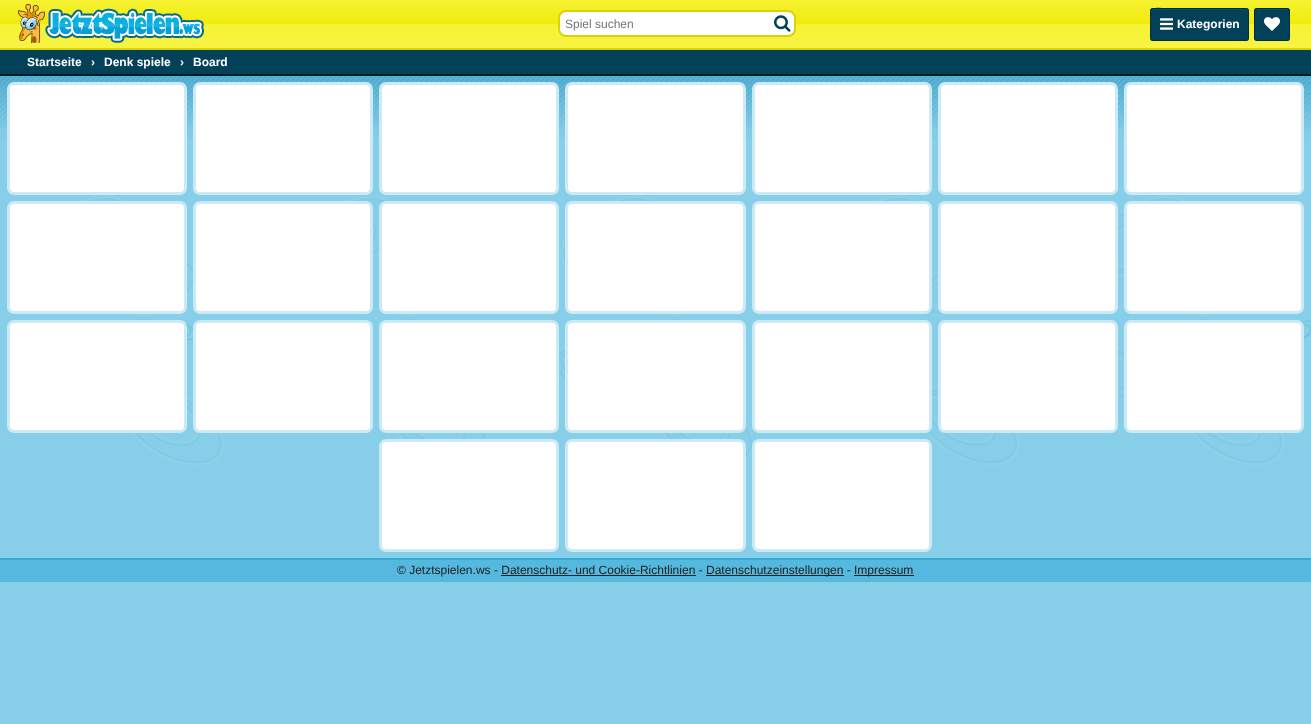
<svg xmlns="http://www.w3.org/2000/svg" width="1311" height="724">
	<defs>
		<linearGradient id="g1" gradientUnits="userSpaceOnUse" x1="656" y1="0" x2="656" y2="48"><stop offset="0" stop-color="#F6F233" /><stop offset="0.5" stop-color="#F0EB0B" /><stop offset="0.51" stop-color="#F6F233" /><stop offset="1" stop-color="#F7F342" /></linearGradient>
	</defs>
	<rect width="100%" height="100%" fill="#87CEE8" />
	<image x="0" y="76" width="1311" height="389" href="assets/img1.png" />
	<rect x="0" y="0" width="1311" height="48" fill="url(#g1)" />
	<rect x="0" y="48" width="1311" height="2" fill="#D8D40A" />
	<image x="18" y="4" width="186" height="39" href="assets/img2.png" />
	<rect x="559" y="11" width="236" height="25" rx="7" fill="#FFFFFF" stroke="#D8D40A" stroke-width="2" />
	<text x="565" y="28" font-family="Liberation Sans" font-size="12" fill="#757575">Spiel suchen</text>
	<image x="774" y="15" width="17" height="17" href="assets/img3.png" />
	<rect x="1150" y="8" width="99" height="33" rx="3" fill="#034158" />
	<path d="M1153 10H1246C1247 10 1248 11 1248 12C1248 11 1248 9 1246 9H1168C1167 9 1151 5 1151 12C1151 11 1152 10 1153 10Z" fill="#04506C" />
	<rect x="1150.5" y="8.5" width="98" height="32" rx="2.5" fill="none" stroke="#022F3F" />
	<image x="1160" y="18" width="13" height="12" href="assets/img4.png" />
	<text x="1177" y="28" font-family="Liberation Sans" font-size="12" font-weight="700" fill="#FFFFFF">Kategorien</text>
	<rect x="1254" y="8" width="36" height="33" rx="3" fill="#034158" />
	<path d="M1257 10H1287C1288 10 1289 11 1289 12C1289 7.5 1286 9 1282 9H1262C1258 9 1255 7.5 1255 12C1255 11 1256 10 1257 10Z" fill="#04506C" />
	<rect x="1254.5" y="8.5" width="35" height="32" rx="2.5" fill="none" stroke="#022F3F" />
	<image x="1264" y="17" width="16" height="14" href="assets/img5.png" />
	<rect x="0" y="50" width="1311" height="24" fill="#034158" />
	<rect x="0" y="74" width="1311" height="2" fill="#011D27" />
	<g font-family="Liberation Sans" font-size="12" font-weight="700" fill="#FFFFFF">
		<text x="27" y="66">Startseite</text>
		<text x="91" y="66">›</text>
		<text x="104" y="66">Denk spiele</text>
		<text x="180" y="66">›</text>
		<text x="193" y="66">Board</text>
	</g>
	<rect x="8.5" y="83.5" width="177" height="110" rx="5.5" fill="#FFFFFF" stroke="#CBEAF5" stroke-width="3" />
	<rect x="194.5" y="83.5" width="177" height="110" rx="5.5" fill="#FFFFFF" stroke="#CBEAF5" stroke-width="3" />
	<rect x="380.5" y="83.5" width="177" height="110" rx="5.5" fill="#FFFFFF" stroke="#CBEAF5" stroke-width="3" />
	<rect x="566.5" y="83.5" width="178" height="110" rx="5.5" fill="#FFFFFF" stroke="#CBEAF5" stroke-width="3" />
	<rect x="753.5" y="83.5" width="177" height="110" rx="5.5" fill="#FFFFFF" stroke="#CBEAF5" stroke-width="3" />
	<rect x="939.5" y="83.5" width="177" height="110" rx="5.5" fill="#FFFFFF" stroke="#CBEAF5" stroke-width="3" />
	<rect x="1125.5" y="83.5" width="177" height="110" rx="5.5" fill="#FFFFFF" stroke="#CBEAF5" stroke-width="3" />
	<rect x="8.5" y="202.5" width="177" height="110" rx="5.5" fill="#FFFFFF" stroke="#CBEAF5" stroke-width="3" />
	<rect x="194.5" y="202.5" width="177" height="110" rx="5.5" fill="#FFFFFF" stroke="#CBEAF5" stroke-width="3" />
	<rect x="380.5" y="202.5" width="177" height="110" rx="5.5" fill="#FFFFFF" stroke="#CBEAF5" stroke-width="3" />
	<rect x="566.5" y="202.5" width="178" height="110" rx="5.5" fill="#FFFFFF" stroke="#CBEAF5" stroke-width="3" />
	<rect x="753.5" y="202.5" width="177" height="110" rx="5.5" fill="#FFFFFF" stroke="#CBEAF5" stroke-width="3" />
	<rect x="939.5" y="202.5" width="177" height="110" rx="5.5" fill="#FFFFFF" stroke="#CBEAF5" stroke-width="3" />
	<rect x="1125.5" y="202.5" width="177" height="110" rx="5.5" fill="#FFFFFF" stroke="#CBEAF5" stroke-width="3" />
	<rect x="8.5" y="321.5" width="177" height="110" rx="5.5" fill="#FFFFFF" stroke="#CBEAF5" stroke-width="3" />
	<rect x="194.5" y="321.5" width="177" height="110" rx="5.5" fill="#FFFFFF" stroke="#CBEAF5" stroke-width="3" />
	<rect x="380.5" y="321.5" width="177" height="110" rx="5.5" fill="#FFFFFF" stroke="#CBEAF5" stroke-width="3" />
	<rect x="566.5" y="321.5" width="178" height="110" rx="5.5" fill="#FFFFFF" stroke="#CBEAF5" stroke-width="3" />
	<rect x="753.5" y="321.5" width="177" height="110" rx="5.5" fill="#FFFFFF" stroke="#CBEAF5" stroke-width="3" />
	<rect x="939.5" y="321.5" width="177" height="110" rx="5.5" fill="#FFFFFF" stroke="#CBEAF5" stroke-width="3" />
	<rect x="1125.5" y="321.5" width="177" height="110" rx="5.5" fill="#FFFFFF" stroke="#CBEAF5" stroke-width="3" />
	<rect x="380.5" y="440.5" width="177" height="110" rx="5.5" fill="#FFFFFF" stroke="#CBEAF5" stroke-width="3" />
	<rect x="566.5" y="440.5" width="178" height="110" rx="5.5" fill="#FFFFFF" stroke="#CBEAF5" stroke-width="3" />
	<rect x="753.5" y="440.5" width="177" height="110" rx="5.5" fill="#FFFFFF" stroke="#CBEAF5" stroke-width="3" />
	<rect x="0" y="560" width="1311" height="22" fill="#55B8DE" />
	<rect x="0" y="558" width="1311" height="2" fill="#33AAD7" />
	<text x="397" y="574" font-family="Liberation Sans" font-size="12" fill="#212121">© Jetztspielen.ws - Datenschutz- und Cookie-Richtlinien -</text>
	<rect x="706" y="575" width="138" height="1" fill="#212121" />
	<text x="706" y="574" font-family="Liberation Sans" font-size="12" fill="#212121">Datenschutzeinstellungen -</text>
	<rect x="854" y="575" width="60" height="1" fill="#212121" />
	<text x="854" y="574" font-family="Liberation Sans" font-size="12" fill="#212121">Impressum</text>
	<rect x="501" y="575" width="195" height="1" fill="#212121" />
</svg>
